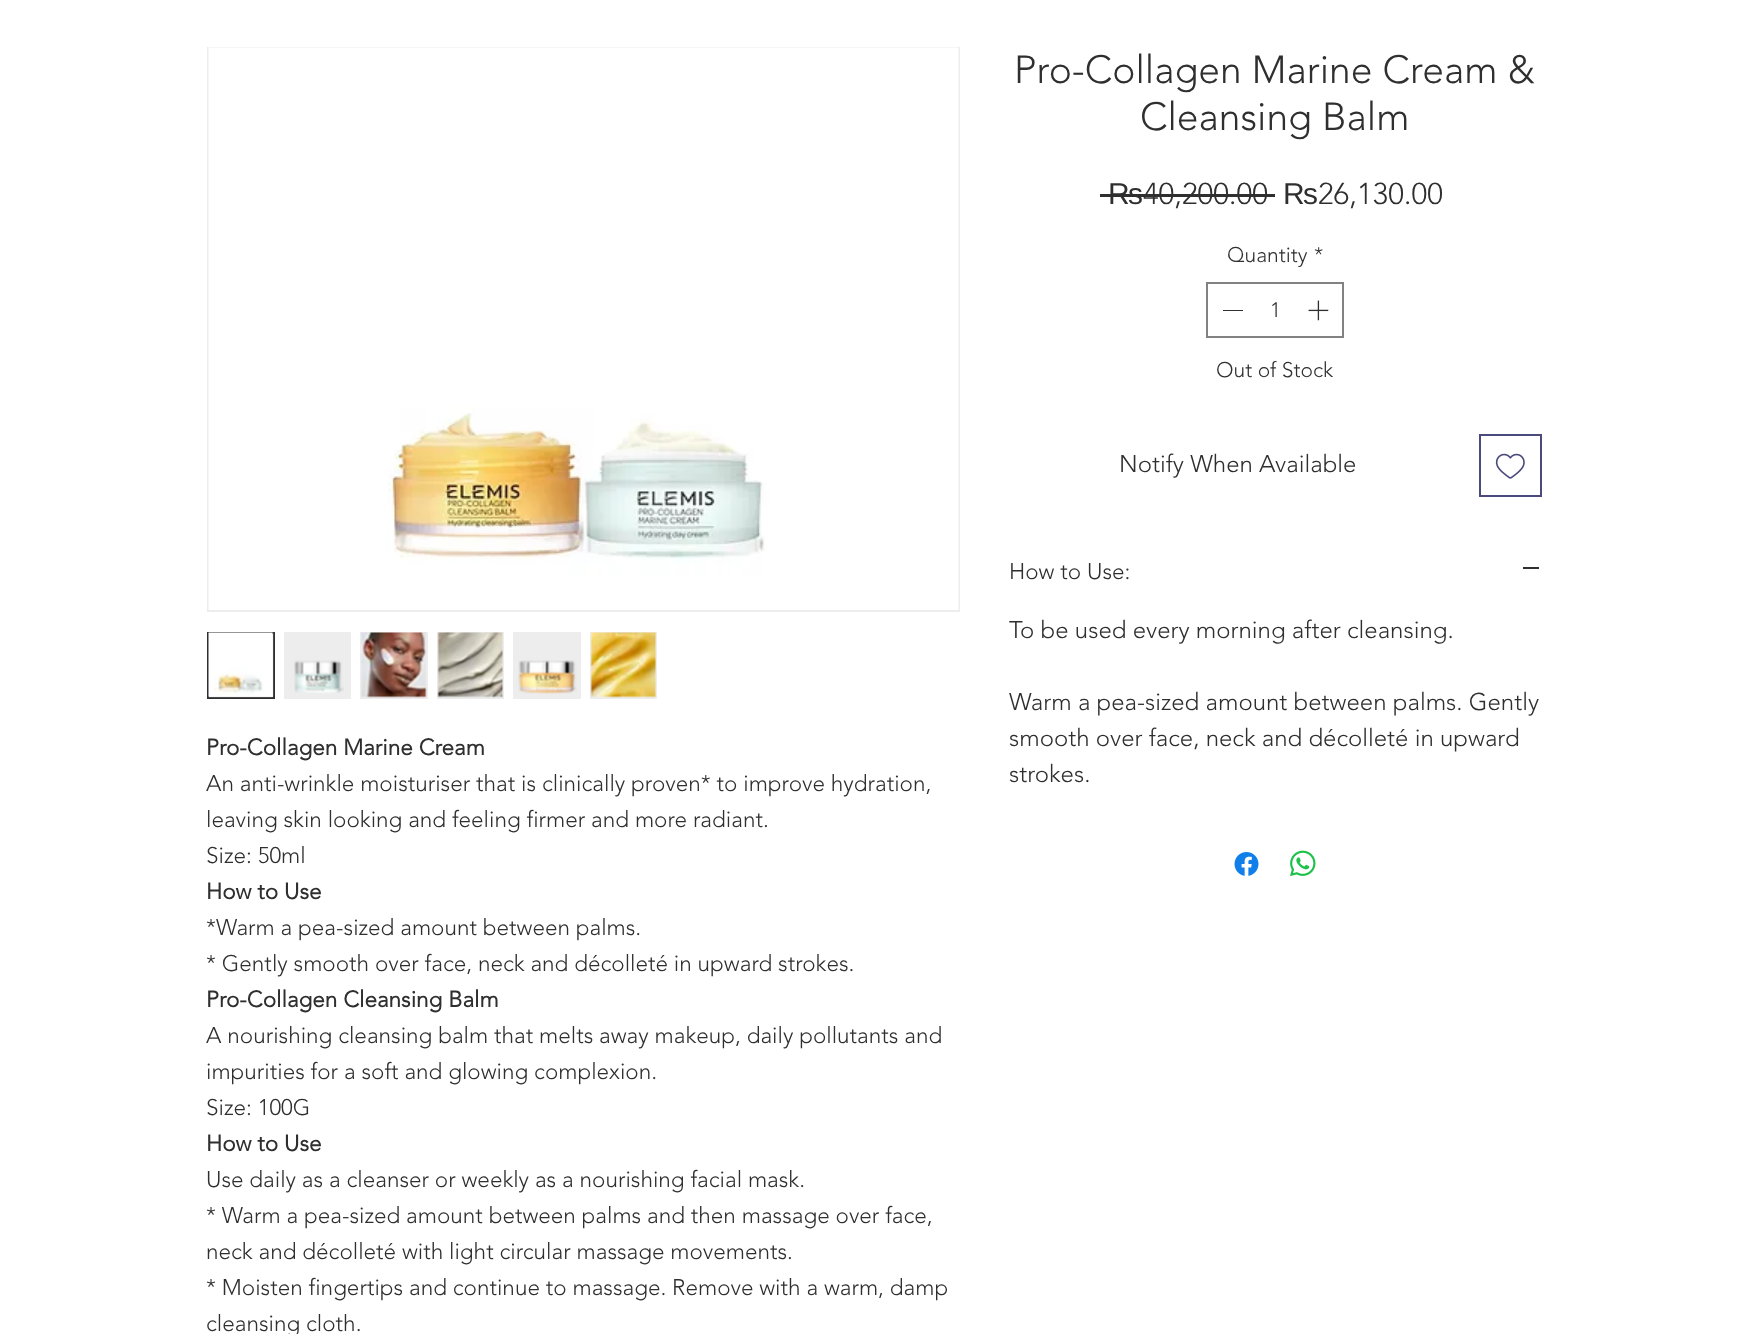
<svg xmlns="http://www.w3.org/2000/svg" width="1747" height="1334">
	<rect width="100%" height="100%" fill="#FFFFFF" />
	<g font-family="'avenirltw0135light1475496'" font-size="39" font-weight="300" fill="#2F2F30">
		<text x="1014" y="83">Pro-Collagen Marine Cream &amp;</text>
		<text x="1140" y="130">Cleansing Balm</text>
	</g>
	<text x="1108" y="204" font-family="Liberation Sans" font-size="30" fill="#2F2F30">₨</text>
	<text x="1143" y="204" font-family="'avenirltw0135light1475496'" font-size="30" font-weight="300" fill="#2F2F30">40,200.00</text>
	<rect x="1100" y="194" width="175" height="3" fill="#2F2F30" />
	<text x="1283" y="204" font-family="Liberation Sans" font-size="30" fill="#2F2F30">₨</text>
	<text x="1318" y="204" font-family="'avenirltw0135light1475496'" font-size="30" font-weight="300" fill="#2F2F30">26,130.00</text>
	<g font-family="'avenirltw0135light1475496'" font-size="21" font-weight="300" fill="#2F2F30">
		<text x="1227" y="262">Quantity</text>
		<text x="1314" y="262">*</text>
	</g>
	<rect x="1207" y="283" width="136" height="54" fill="none" stroke="#828283" stroke-width="2" />
	<rect x="1223" y="310" width="20" height="1" fill="#2F2F30" />
	<text x="1270" y="317" font-family="'avenirltw0135light1475496'" font-size="21" font-weight="300" fill="#2F2F30">1</text>
	<image x="1308" y="300" width="21" height="21" href="assets/img1.png" />
	<text x="1216" y="377" font-family="'avenirltw0135light1475496'" font-size="21" font-weight="300" fill="#2F2F30">Out of Stock</text>
	<text x="1119" y="472" font-family="'avenirltw0135light1475496'" font-size="24" font-weight="300" fill="#2F2F30">Notify When Available</text>
	<rect x="1480" y="435" width="61" height="61" fill="none" stroke="#4B4A7C" stroke-width="2" />
	<image x="1495" y="453" width="30" height="26" href="assets/img2.png" />
	<text x="1009" y="579" font-family="'avenirltw0135light1475496'" font-size="22.5" font-weight="300" fill="#2F2F30">How to Use:</text>
	<rect x="1523" y="567" width="16" height="2" fill="#2F2F30" />
	<g font-family="'avenirltw0135light1475496'" font-size="24" font-weight="300" fill="#2F2F30">
		<text x="1009" y="638">To be used every morning after cleansing.</text>
		<text x="1009" y="710">Warm a pea-sized amount between palms. Gently</text>
		<text x="1009" y="746">smooth over face, neck and décolleté in upward</text>
		<text x="1009" y="782">strokes.</text>
	</g>
	<image x="1234" y="852" width="25" height="24" href="assets/img3.png" />
	<image x="1290" y="850" width="26" height="27" href="assets/img4.png" />
	<rect x="208" y="48" width="751" height="563" fill="none" stroke="#EDEDEE" stroke-width="2" />
	<image x="208" y="47" width="751" height="563" href="assets/img5.png" />
	<rect x="208" y="633" width="66" height="65" fill="#EDEDEE" stroke="#2F2F30" stroke-width="2" />
	<image x="208" y="632" width="66" height="66" href="assets/img6.png" />
	<rect x="284" y="632" width="67" height="67" fill="#EDEDEE" />
	<image x="294" y="660" width="50" height="33" href="assets/img7.png" />
	<rect x="360" y="632" width="68" height="67" fill="#EDEDEE" />
	<image x="361" y="632" width="66" height="66" href="assets/img8.png" />
	<rect x="437" y="632" width="67" height="67" fill="#EDEDEE" />
	<image x="437" y="632" width="66" height="66" href="assets/img9.png" />
	<rect x="513" y="632" width="68" height="67" fill="#EDEDEE" />
	<image x="518" y="660" width="59" height="34" href="assets/img10.png" />
	<rect x="590" y="632" width="67" height="67" fill="#EDEDEE" />
	<image x="590" y="632" width="66" height="66" href="assets/img11.png" />
	<text x="206" y="755" font-family="'avenirltw0135light1475496'" font-size="22.5" font-weight="700" fill="#2F2F30">Pro-Collagen Marine Cream</text>
	<g font-family="'avenirltw0135light1475496'" font-size="22.5" font-weight="300" fill="#2F2F30">
		<text x="206" y="791">An anti-wrinkle moisturiser that is clinically proven* to improve hydration,</text>
		<text x="206" y="827">leaving skin looking and feeling firmer and more radiant.</text>
		<text x="206" y="863">Size: 50ml</text>
	</g>
	<text x="206" y="899" font-family="'avenirltw0135light1475496'" font-size="22.5" font-weight="700" fill="#2F2F30">How to Use</text>
	<g font-family="'avenirltw0135light1475496'" font-size="22.5" font-weight="300" fill="#2F2F30">
		<text x="206" y="935">*Warm a pea-sized amount between palms.</text>
		<text x="206" y="971">* Gently smooth over face, neck and décolleté in upward strokes.</text>
	</g>
	<text x="206" y="1007" font-family="'avenirltw0135light1475496'" font-size="22.5" font-weight="700" fill="#2F2F30">Pro-Collagen Cleansing Balm</text>
	<g font-family="'avenirltw0135light1475496'" font-size="22.5" font-weight="300" fill="#2F2F30">
		<text x="206" y="1043">A nourishing cleansing balm that melts away makeup, daily pollutants and</text>
		<text x="206" y="1079">impurities for a soft and glowing complexion.</text>
		<text x="206" y="1115">Size: 100G</text>
	</g>
	<text x="206" y="1151" font-family="'avenirltw0135light1475496'" font-size="22.5" font-weight="700" fill="#2F2F30">How to Use</text>
	<g font-family="'avenirltw0135light1475496'" font-size="22.5" font-weight="300" fill="#2F2F30">
		<text x="206" y="1187">Use daily as a cleanser or weekly as a nourishing facial mask.</text>
		<text x="206" y="1223">* Warm a pea-sized amount between palms and then massage over face,</text>
		<text x="206" y="1259">neck and décolleté with light circular massage movements.</text>
		<text x="206" y="1295">* Moisten fingertips and continue to massage. Remove with a warm, damp</text>
		<text x="206" y="1331">cleansing cloth.</text>
	</g>
</svg>
